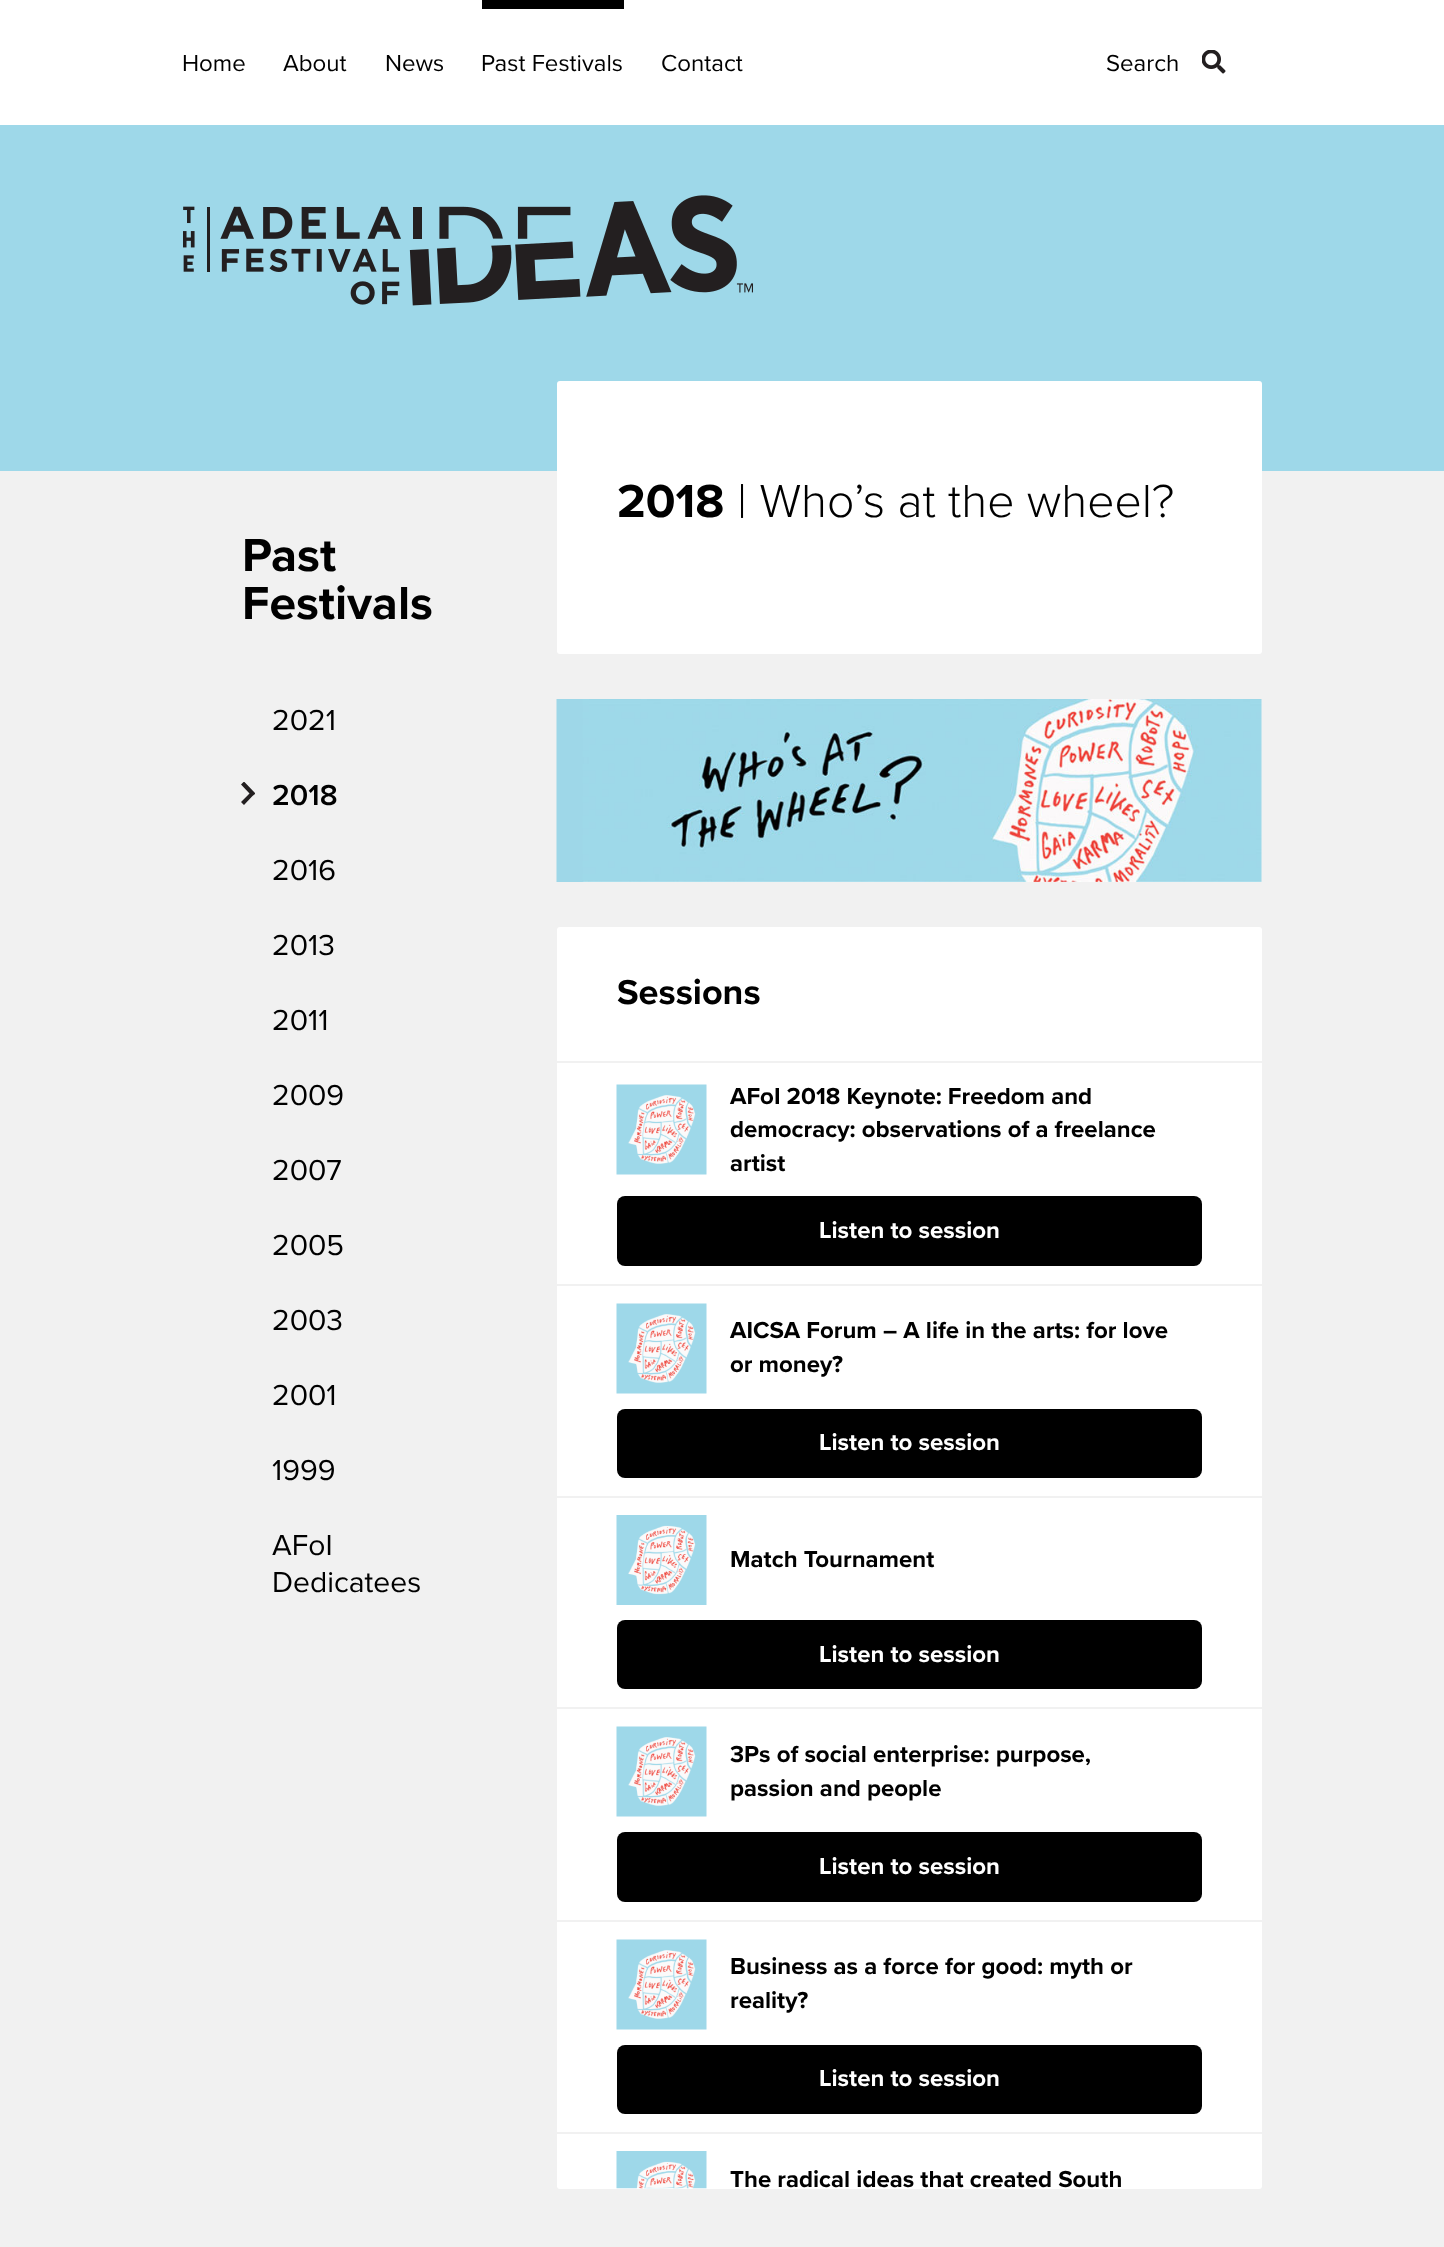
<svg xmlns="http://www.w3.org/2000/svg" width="1444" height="2247">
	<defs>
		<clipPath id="clip1"><rect x="240" y="782" width="15" height="24" /></clipPath>
	</defs>
	<rect width="100%" height="100%" fill="#FFFFFF" />
	<g font-family="Proxima Nova" font-size="24" fill="#000000">
		<text x="182" y="71">Home</text>
		<text x="283" y="71">About</text>
		<text x="385" y="71">News</text>
	</g>
	<rect x="482" y="0" width="142" height="9" fill="#000000" />
	<g font-family="Proxima Nova" font-size="24" fill="#000000">
		<text x="481" y="71">Past Festivals</text>
		<text x="661" y="71">Contact</text>
		<text x="1106" y="71">Search</text>
	</g>
	<image x="1202" y="50" width="24" height="24" href="assets/img1.png" />
	<rect x="0" y="125" width="1444" height="346" fill="#9ED8E9" />
	<image x="183" y="195" width="570" height="111" href="assets/img2.png" />
	<rect x="0" y="471" width="1444" height="1776" fill="#F1F1F1" />
	<g font-family="Proxima Nova" font-size="48" font-weight="700" fill="#000000">
		<text x="242" y="571">Past</text>
		<text x="242" y="619">Festivals</text>
	</g>
	<text x="272" y="730" font-family="Proxima Nova" font-size="30" fill="#000000">2021</text>
	<g clip-path="url(#clip1)">
		<path d="M252.5 796L244 805L241 802L249.5 793.5L241 784.5L244 781.5L255.5 793.5Z" fill="#231F20" fill-rule="evenodd" />
	</g>
	<text x="272" y="805" font-family="Proxima Nova" font-size="30" font-weight="600" fill="#000000">2018</text>
	<g font-family="Proxima Nova" font-size="30" fill="#000000">
		<text x="272" y="880">2016</text>
		<text x="272" y="955">2013</text>
		<text x="272" y="1030">2011</text>
		<text x="272" y="1105">2009</text>
		<text x="272" y="1180">2007</text>
		<text x="272" y="1255">2005</text>
		<text x="272" y="1330">2003</text>
		<text x="272" y="1405">2001</text>
		<text x="272" y="1480">1999</text>
		<text x="272" y="1555">AFoI</text>
		<text x="272" y="1592">Dedicatees</text>
	</g>
	<rect x="557" y="381" width="705" height="273" rx="3" fill="#FFFFFF" />
	<text x="617" y="517" font-family="Proxima Nova" font-size="48" font-weight="700" fill="#000000">2018</text>
	<text x="737" y="517" font-family="Proxima Nova" font-size="48" font-weight="300" fill="#000000">| Who’s at the wheel?</text>
	<image x="556" y="699" width="706" height="183" href="assets/img3.png" />
	<rect x="557" y="927" width="705" height="1262" rx="3" fill="#FFFFFF" />
	<text x="617" y="1004" font-family="Proxima Nova" font-size="36" font-weight="700" fill="#000000">Sessions</text>
	<rect x="557" y="1061" width="705" height="2" fill="#F1F1F1" />
	<image x="616" y="1084" width="91" height="91" href="assets/img4.png" />
	<g font-family="Proxima Nova" font-size="24" font-weight="700" fill="#000000">
		<text x="730" y="1104">AFoI 2018 Keynote: Freedom and</text>
		<text x="730" y="1137">democracy: observations of a freelance</text>
		<text x="730" y="1171">artist</text>
	</g>
	<rect x="617" y="1196" width="585" height="70" rx="8" fill="#000000" />
	<text x="819" y="1238" font-family="Proxima Nova" font-size="24" font-weight="700" fill="#FFFFFF">Listen to session</text>
	<rect x="557" y="1284" width="705" height="2" fill="#F1F1F1" />
	<image x="616" y="1303" width="91" height="91" href="assets/img5.png" />
	<g font-family="Proxima Nova" font-size="24" font-weight="700" fill="#000000">
		<text x="730" y="1338">AICSA Forum – A life in the arts: for love</text>
		<text x="730" y="1372">or money?</text>
	</g>
	<rect x="617" y="1409" width="585" height="69" rx="8" fill="#000000" />
	<text x="819" y="1450" font-family="Proxima Nova" font-size="24" font-weight="700" fill="#FFFFFF">Listen to session</text>
	<rect x="557" y="1496" width="705" height="2" fill="#F1F1F1" />
	<image x="616" y="1515" width="91" height="90" href="assets/img6.png" />
	<text x="730" y="1567" font-family="Proxima Nova" font-size="24" font-weight="700" fill="#000000">Match Tournament</text>
	<rect x="617" y="1620" width="585" height="69" rx="8" fill="#000000" />
	<text x="819" y="1662" font-family="Proxima Nova" font-size="24" font-weight="700" fill="#FFFFFF">Listen to session</text>
	<rect x="557" y="1707" width="705" height="2" fill="#F1F1F1" />
	<image x="616" y="1726" width="91" height="91" href="assets/img7.png" />
	<g font-family="Proxima Nova" font-size="24" font-weight="700" fill="#000000">
		<text x="730" y="1762">3Ps of social enterprise: purpose,</text>
		<text x="730" y="1796">passion and people</text>
	</g>
	<rect x="617" y="1832" width="585" height="70" rx="8" fill="#000000" />
	<text x="819" y="1874" font-family="Proxima Nova" font-size="24" font-weight="700" fill="#FFFFFF">Listen to session</text>
	<rect x="557" y="1920" width="705" height="2" fill="#F1F1F1" />
	<image x="616" y="1939" width="91" height="91" href="assets/img8.png" />
	<g font-family="Proxima Nova" font-size="24" font-weight="700" fill="#000000">
		<text x="730" y="1974">Business as a force for good: myth or</text>
		<text x="730" y="2008">reality?</text>
	</g>
	<rect x="617" y="2045" width="585" height="69" rx="8" fill="#000000" />
	<text x="819" y="2086" font-family="Proxima Nova" font-size="24" font-weight="700" fill="#FFFFFF">Listen to session</text>
	<rect x="557" y="2132" width="705" height="2" fill="#F1F1F1" />
	<image x="616" y="2151" width="91" height="38" href="assets/img9.png" />
	<text x="730" y="2187" font-family="Proxima Nova" font-size="24" font-weight="700" fill="#000000">The radical ideas that created South</text>
</svg>
